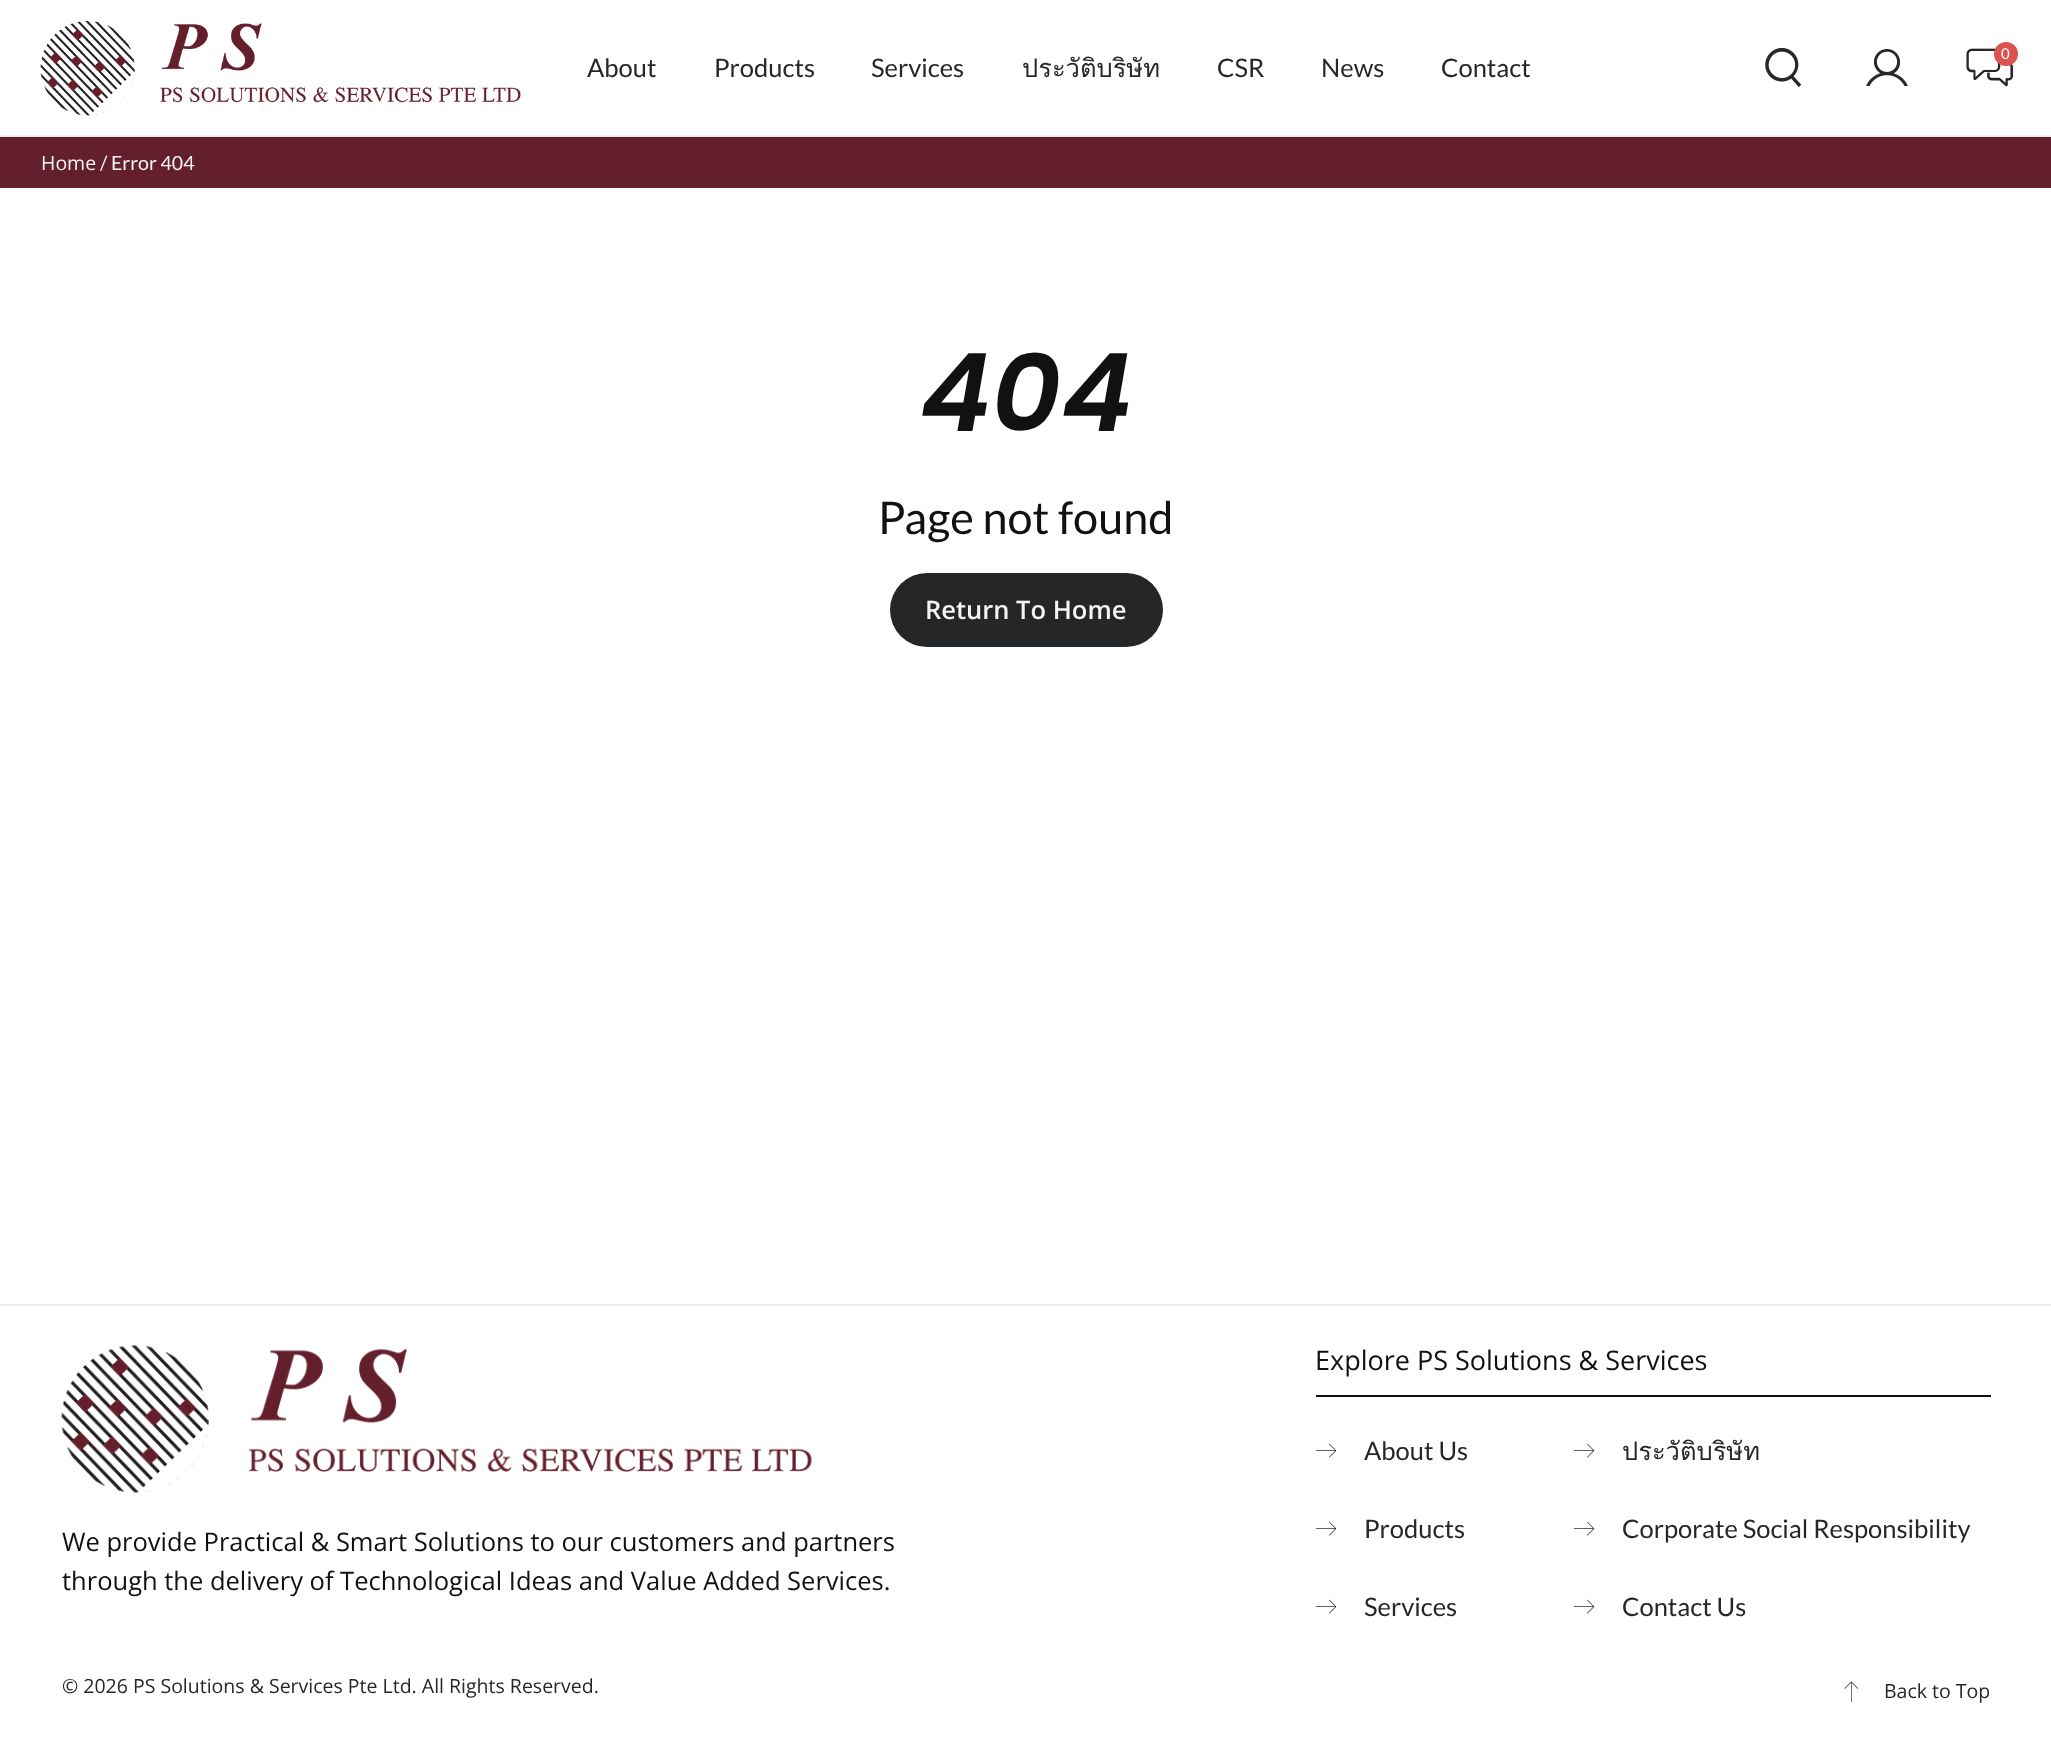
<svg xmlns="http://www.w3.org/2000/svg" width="2051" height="1743">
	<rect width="100%" height="100%" fill="#FFFFFF" />
	<rect x="0" y="135" width="2051" height="2" fill="#F3F3F3" />
	<image x="1765" y="47" width="37" height="40" href="assets/img1.png" />
	<image x="1866" y="49" width="42" height="37" href="assets/img2.png" />
	<image x="1966" y="48" width="48" height="39" href="assets/img3.png" />
	<circle cx="2006" cy="54" r="12" fill="#D9534F" />
	<text x="2001" y="59" font-family="Lato" font-size="15" fill="#FFFFFF">0</text>
	<image x="40" y="21" width="481" height="95" href="assets/img4.png" />
	<g font-family="Lato" font-size="25.5" fill="#272727">
		<text x="587" y="77">About</text>
		<text x="714" y="77">Products</text>
		<text x="871" y="77">Services</text>
	</g>
	<text x="1022" y="77" font-family="Loma" font-size="25.5" fill="#272727">ประวัติบริษัท</text>
	<g font-family="Lato" font-size="25.5" fill="#272727">
		<text x="1217" y="77">CSR</text>
		<text x="1321" y="77">News</text>
		<text x="1441" y="77">Contact</text>
	</g>
	<rect x="0" y="137" width="2051" height="51" fill="#641F2D" />
	<text x="41" y="170" font-family="Open Sans" font-size="19.5" fill="#F4F4F4">Home</text>
	<text x="100" y="170" font-family="Lato" font-size="19.5" fill="#F4F4F4">/ Error 404</text>
	<text x="920" y="431" font-family="Poppins" font-size="108" font-weight="600" font-style="italic" fill="#111111">404</text>
	<text x="878" y="534" font-family="Lato" font-size="45" fill="#111111">Page not found</text>
	<rect x="890" y="573" width="273" height="74" rx="37" fill="#242628" />
	<text x="925" y="619" font-family="Open Sans" font-size="25.5" font-weight="600" fill="#F4F4F4">Return To Home</text>
	<rect x="0" y="1304" width="2051" height="2" fill="#ECECEC" />
	<image x="61" y="1345" width="751" height="148" href="assets/img5.png" />
	<g font-family="Open Sans" font-size="25.5" fill="#111111">
		<text x="62" y="1551">We provide Practical &amp; Smart Solutions to our customers and partners</text>
		<text x="62" y="1590">through the delivery of Technological Ideas and Value Added Services.</text>
	</g>
	<text x="62" y="1693" font-family="Open Sans" font-size="19.5" fill="#272727">© 2026 PS Solutions &amp; Services Pte Ltd. All Rights Reserved.</text>
	<text x="1315" y="1370" font-family="Open Sans" font-size="27" fill="#111111">Explore PS Solutions &amp; Services</text>
	<rect x="1316" y="1395" width="675" height="2" fill="#111111" />
	<image x="1315" y="1443" width="22" height="15" href="assets/img6.png" />
	<text x="1364" y="1460" font-family="Lato" font-size="25.5" fill="#272727">About Us</text>
	<image x="1315" y="1521" width="22" height="15" href="assets/img6.png" />
	<text x="1364" y="1538" font-family="Lato" font-size="25.5" fill="#272727">Products</text>
	<image x="1315" y="1599" width="22" height="15" href="assets/img6.png" />
	<text x="1364" y="1616" font-family="Lato" font-size="25.5" fill="#272727">Services</text>
	<image x="1573" y="1443" width="22" height="15" href="assets/img6.png" />
	<text x="1622" y="1460" font-family="Loma" font-size="25.5" fill="#272727">ประวัติบริษัท</text>
	<image x="1573" y="1521" width="22" height="15" href="assets/img6.png" />
	<text x="1622" y="1538" font-family="Lato" font-size="25.5" fill="#272727">Corporate Social Responsibility</text>
	<image x="1573" y="1599" width="22" height="15" href="assets/img6.png" />
	<text x="1622" y="1616" font-family="Lato" font-size="25.5" fill="#272727">Contact Us</text>
	<image x="1844" y="1681" width="15" height="21" href="assets/img7.png" />
	<text x="1884" y="1698" font-family="Open Sans" font-size="19.5" fill="#272727">Back to Top</text>
</svg>
